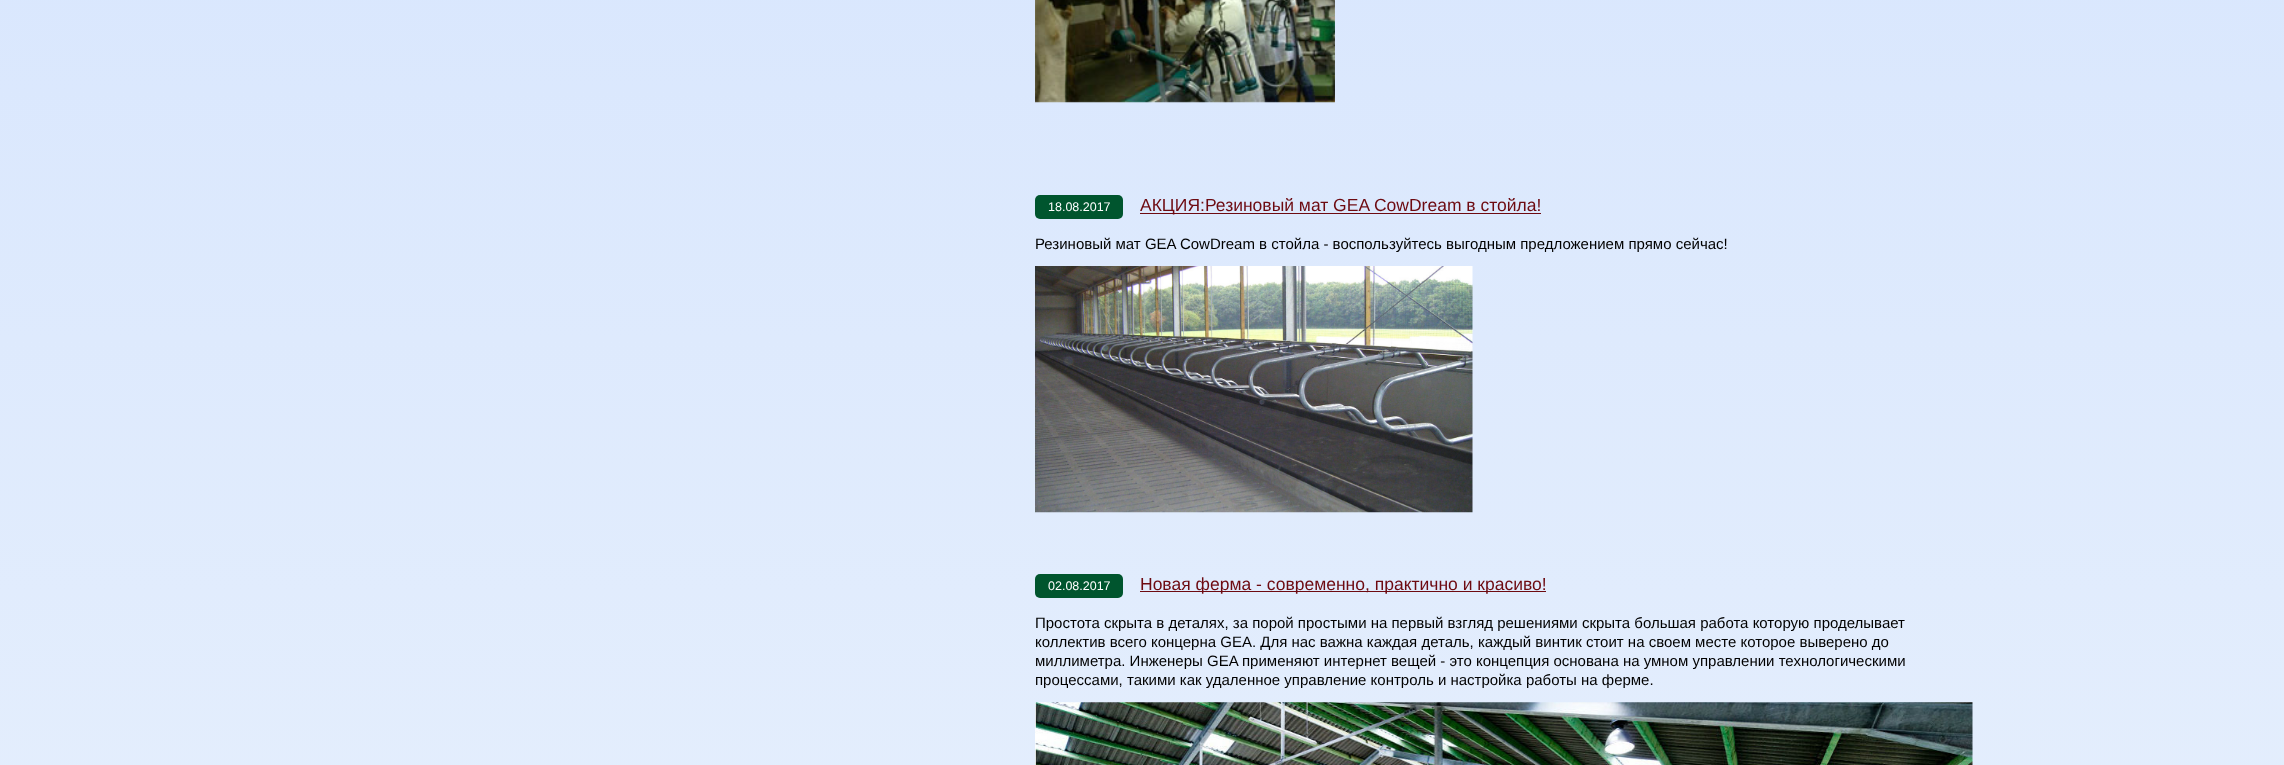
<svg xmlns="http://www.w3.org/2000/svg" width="2284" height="765">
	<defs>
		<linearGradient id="g1" gradientUnits="userSpaceOnUse" x1="1142" y1="-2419" x2="1143" y2="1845"><stop offset="0" stop-color="#BDD4FF" /><stop offset="1" stop-color="#F0F6FC" /></linearGradient>
	</defs>
	<rect width="100%" height="100%" fill="#FFFFFF" />
	<rect x="0" y="0" width="2284" height="765" fill="url(#g1)" />
	<image x="1035" y="0" width="300" height="103" href="assets/img1.png" />
	<rect x="1035" y="195" width="88" height="24" rx="5" fill="#00552E" />
	<text x="1048" y="211" font-family="Liberation Sans" font-size="12.5" fill="#FFFFFF">18.08.2017</text>
	<rect x="1140" y="213" width="401" height="1" fill="#6D0A11" />
	<text x="1140" y="211" font-family="Liberation Sans" font-size="17.5" fill="#6D0A11">АКЦИЯ:Резиновый мат GEA CowDream в стойла!</text>
	<text x="1035" y="249" font-family="Liberation Sans" font-size="15" fill="#000000">Резиновый мат GEA CowDream в стойла - воспользуйтесь выгодным предложением прямо сейчас!</text>
	<image x="1035" y="266" width="438" height="247" href="assets/img2.png" />
	<rect x="1035" y="574" width="88" height="24" rx="5" fill="#00552E" />
	<text x="1048" y="590" font-family="Liberation Sans" font-size="12.5" fill="#FFFFFF">02.08.2017</text>
	<rect x="1140" y="591" width="406" height="1" fill="#6D0A11" />
	<text x="1140" y="590" font-family="Liberation Sans" font-size="17.5" fill="#6D0A11">Новая ферма - современно, практично и красиво!</text>
	<g font-family="Liberation Sans" font-size="15" fill="#000000">
		<text x="1035" y="628">Простота скрыта в деталях, за порой простыми на первый взгляд решениями скрыта большая работа которую проделывает</text>
		<text x="1035" y="647">коллектив всего концерна GEA. Для нас важна каждая деталь, каждый винтик стоит на своем месте которое выверено до</text>
		<text x="1035" y="666">миллиметра. Инженеры GEA применяют интернет вещей - это концепция основана на умном управлении технологическими</text>
		<text x="1035" y="685">процессами, такими как удаленное управление контроль и настройка работы на ферме.</text>
	</g>
	<image x="1035" y="702" width="938" height="63" href="assets/img3.png" />
</svg>
